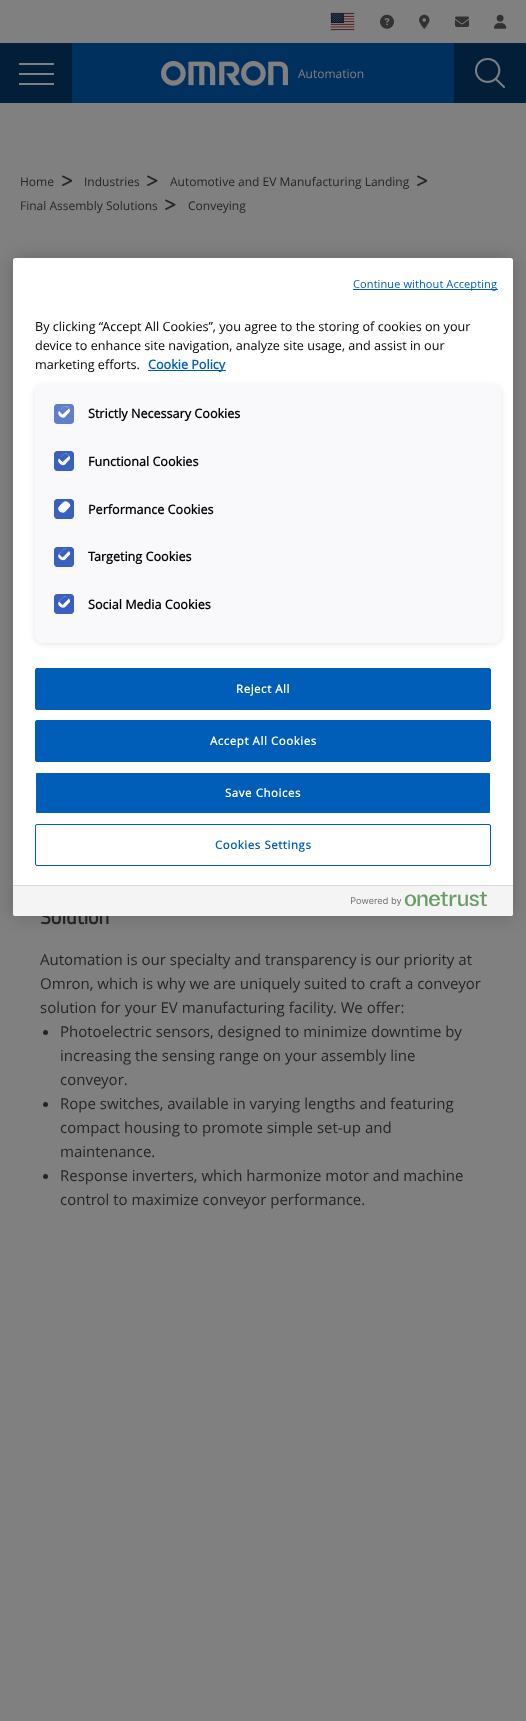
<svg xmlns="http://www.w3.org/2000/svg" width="526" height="1721">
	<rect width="100%" height="100%" fill="#808080" />
	<rect x="330.5" y="12.5" width="24" height="18" fill="none" stroke="#79797A" />
	<image x="331" y="13" width="23" height="17" href="assets/img1.png" />
	<image x="380" y="14" width="14" height="15" href="assets/img2.png" />
	<image x="419" y="14" width="11" height="15" href="assets/img3.png" />
	<image x="455" y="16" width="14" height="11" href="assets/img4.png" />
	<image x="494" y="14" width="13" height="15" href="assets/img5.png" />
	<rect x="72" y="43" width="382" height="60" fill="#00305D" />
	<rect x="0" y="43" width="72" height="60" fill="#031E38" />
	<rect x="19" y="63" width="35" height="2" fill="#808080" />
	<rect x="19" y="73" width="35" height="2" fill="#808080" />
	<rect x="19" y="83" width="35" height="2" fill="#808080" />
	<image x="161" y="61" width="127" height="25" href="assets/img6.png" />
	<text x="298" y="78" font-family="Open Sans" font-size="12" fill="#808080">Automation</text>
	<rect x="454" y="43" width="72" height="60" fill="#031E38" />
	<image x="475" y="58" width="30" height="30" href="assets/img7.png" />
	<text x="20" y="186" font-family="Open Sans" font-size="12" fill="#252525">Home</text>
	<image x="62" y="175" width="10" height="11" href="assets/img8.png" />
	<text x="84" y="186" font-family="Open Sans" font-size="12" fill="#252525">Industries</text>
	<image x="147" y="175" width="11" height="11" href="assets/img9.png" />
	<text x="170" y="186" font-family="Open Sans" font-size="12" fill="#252525">Automotive and EV Manufacturing Landing</text>
	<image x="417" y="175" width="10" height="11" href="assets/img8.png" />
	<text x="20" y="210" font-family="Open Sans" font-size="12" fill="#252525">Final Assembly Solutions</text>
	<image x="165" y="199" width="11" height="11" href="assets/img9.png" />
	<text x="188" y="210" font-family="Open Sans" font-size="12" fill="#252525">Conveying</text>
	<text x="40" y="924" font-family="Titillium Web" font-size="20" font-weight="700" fill="#252525">Solution</text>
	<g font-family="Open Sans" font-size="15" fill="#252525">
		<text x="40" y="965">Automation is our specialty and transparency is our priority at</text>
		<text x="40" y="989">Omron, which is why we are uniquely suited to craft a conveyor</text>
		<text x="40" y="1013">solution for your EV manufacturing facility. We offer:</text>
	</g>
	<circle cx="45.5" cy="1032.5" r="2.5" fill="#252525" />
	<g font-family="Open Sans" font-size="15" fill="#252525">
		<text x="60" y="1037">Photoelectric sensors, designed to minimize downtime by</text>
		<text x="60" y="1061">increasing the sensing range on your assembly line</text>
		<text x="60" y="1085">conveyor.</text>
	</g>
	<circle cx="45.5" cy="1104.5" r="2.5" fill="#252525" />
	<g font-family="Open Sans" font-size="15" fill="#252525">
		<text x="60" y="1109">Rope switches, available in varying lengths and featuring</text>
		<text x="60" y="1133">compact housing to promote simple set-up and</text>
		<text x="60" y="1157">maintenance.</text>
	</g>
	<circle cx="45.5" cy="1176.5" r="2.5" fill="#252525" />
	<g font-family="Open Sans" font-size="15" fill="#252525">
		<text x="60" y="1181">Response inverters, which harmonize motor and machine</text>
		<text x="60" y="1205">control to maximize conveyor performance.</text>
	</g>
	<rect x="13" y="258" width="500" height="658" rx="2.5" fill="#000000" fill-opacity="0.2" filter="blur(9px)" />
	<rect x="13" y="258" width="500" height="658" rx="2.5" fill="#FFFFFF" />
	<rect x="353" y="289" width="145" height="1" fill="#005EB8" />
	<text x="353" y="288" font-family="Open Sans" font-size="11" letter-spacing="0.1" fill="#005EB8">Continue without Accepting</text>
	<g font-family="Open Sans" font-size="12.6" fill="#000000">
		<text x="35" y="331">By clicking “Accept All Cookies”, you agree to the storing of cookies on your</text>
		<text x="35" y="350">device to enhance site navigation, analyze site usage, and assist in our</text>
		<text x="35" y="369">marketing efforts.</text>
	</g>
	<rect x="148" y="370" width="78" height="1" fill="#005EB8" />
	<text x="148" y="369" font-family="Open Sans" font-size="12.6" font-weight="700" fill="#005EB8">Cookie Policy</text>
	<rect x="35" y="386" width="466" height="258" rx="8" fill="#000000" fill-opacity="0.1" filter="blur(3px)" />
	<rect x="35" y="385" width="466" height="258" rx="8" fill="#F9F9FC" />
	<path d="M57 404H71C72.5 404 74 405.5 74 407V421C74 422.5 72.5 424 71 424H57C55.5 424 54 422.5 54 421V407C54 405.5 55.5 404 57 404Z" fill="#5F7FCA" />
	<path d="M59 411L63.5 407C66 404.5 71 408.5 70 411.5L65 417C62 419.5 56 414 59 411ZM59 411C61 409.5 64.5 404.5 67 406.5L69 408.5L62.5 414.5Z" fill="#FEFEFE" fill-rule="evenodd" />
	<text x="88" y="418" font-family="Open Sans" font-size="12.6" font-weight="700" fill="#000000">Strictly Necessary Cookies</text>
	<path d="M57 451H71C72.5 451 74 452.5 74 454V468C74 469.5 72.5 471 71 471H57C55.5 471 54 469.5 54 468V454C54 452.5 55.5 451 57 451Z" fill="#3860BE" />
	<path d="M59 458.5L63.5 454.5C66 452 71 456 70 459L65 464.5C62 467 56 461.5 59 458.5ZM59 458.5C61 457 64.5 452 67 454L69 456L62.5 462Z" fill="#FFFFFF" fill-rule="evenodd" />
	<text x="88" y="466" font-family="Open Sans" font-size="12.6" font-weight="700" fill="#000000">Functional Cookies</text>
	<path d="M57 499H71C72.5 499 74 500.5 74 502V516C74 517.5 72.5 519 71 519H57C55.5 519 54 517.5 54 516V502C54 500.5 55.5 499 57 499Z" fill="#3860BE" />
	<path d="M59 506.5C61 504.5 62 502.5 64.5 501.5C67 500.5 71.5 504.5 70 506.5L65 512C61.5 514.5 56 509.5 59 506.5Z" fill="#FFFFFF" />
	<text x="88" y="514" font-family="Open Sans" font-size="12.6" font-weight="700" fill="#000000">Performance Cookies</text>
	<path d="M57 547H71C72.5 547 74 548.5 74 550V564C74 565.5 72.5 567 71 567H57C55.5 567 54 565.5 54 564V550C54 548.5 55.5 547 57 547Z" fill="#3860BE" />
	<path d="M59 554C60.5 552.5 64 548 66.5 549L69 551L62.5 557.5ZM59 554C56.5 556.5 60.5 561 64 560C65 560 66.5 558 67.5 557L70 554.5C70.5 553.5 69.5 552 69 551C65 546 62 551 59 554Z" fill="#FFFFFF" fill-rule="evenodd" />
	<text x="88" y="561" font-family="Open Sans" font-size="12.6" font-weight="700" fill="#000000">Targeting Cookies</text>
	<path d="M57 594H71C72.5 594 74 595.5 74 597V611C74 612.5 72.5 614 71 614H57C55.5 614 54 612.5 54 611V597C54 595.5 55.5 594 57 594Z" fill="#3860BE" />
	<path d="M59 601.5C60.5 600 64 595.5 66.5 596.5L69 598.5L62.5 605ZM59 601.5C56.5 604 60.5 608.5 64 607.5C65 607.5 66.5 605.5 67.5 604.5L70 602C70.5 601 69.5 599.5 69 598.5C65 593.5 62 598.5 59 601.5Z" fill="#FFFFFF" fill-rule="evenodd" />
	<text x="88" y="609" font-family="Open Sans" font-size="12.6" font-weight="700" fill="#000000">Social Media Cookies</text>
	<rect x="35.5" y="668.5" width="455" height="41" rx="1.5" fill="#005EB8" stroke="#005EB8" />
	<text x="236" y="693" font-family="Open Sans" font-size="11.4" font-weight="700" letter-spacing="0.6" fill="#FFFFFF">Reject All</text>
	<rect x="35.5" y="720.5" width="455" height="41" rx="1.5" fill="#005EB8" stroke="#005EB8" />
	<text x="210" y="745" font-family="Open Sans" font-size="11.4" font-weight="700" letter-spacing="0.6" fill="#FFFFFF">Accept All Cookies</text>
	<rect x="35.5" y="772.5" width="455" height="41" rx="1.5" fill="#005EB8" stroke="#FFFFFF" />
	<text x="225" y="797" font-family="Open Sans" font-size="11.4" font-weight="700" letter-spacing="0.6" fill="#FFFFFF">Save Choices</text>
	<rect x="35.5" y="824.5" width="455" height="41" rx="1.5" fill="none" stroke="#005EB8" />
	<text x="215" y="849" font-family="Open Sans" font-size="11.4" font-weight="700" letter-spacing="0.6" fill="#005EB8">Cookies Settings</text>
	<path d="M13 885H513V913.5C513 915 512 916 510.5 916H15.5C14 916 13 915 13 913.5Z" fill="#F4F4F4" />
	<rect x="13" y="885" width="500" height="1" fill="#D8D8D8" />
	<image x="351" y="891" width="136" height="16" href="assets/img10.png" />
</svg>
